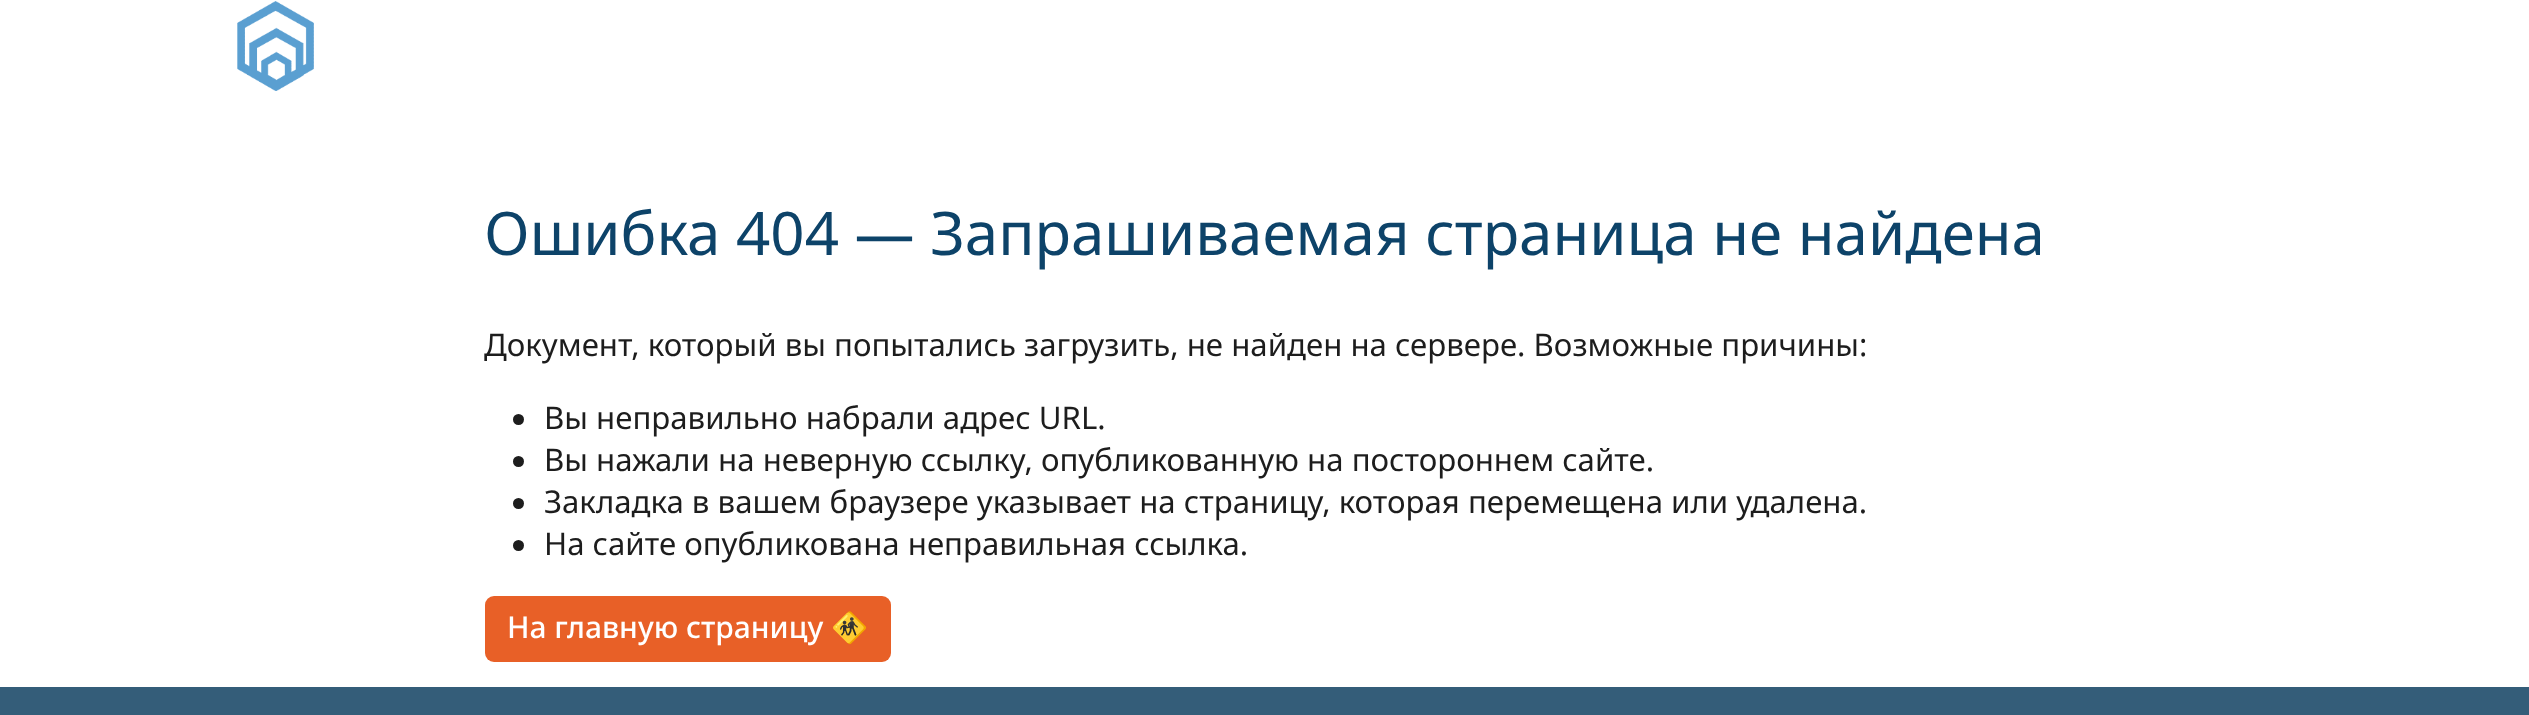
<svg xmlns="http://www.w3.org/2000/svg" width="2529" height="715">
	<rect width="100%" height="100%" fill="#FFFFFF" />
	<image x="237" y="1" width="77" height="90" href="assets/img1.png" />
	<text x="484" y="255" font-family="Noto Sans" font-size="60" fill="#0D4369">Ошибка 404 — Запрашиваемая страница не найдена</text>
	<text x="484" y="356" font-family="Noto Sans" font-size="31.2" fill="#1D1D1D">Документ, который вы попытались загрузить, не найден на сервере. Возможные причины:</text>
	<circle cx="518.5" cy="419.5" r="5.5" fill="#1D1D1D" />
	<text x="544" y="429" font-family="Noto Sans" font-size="31.2" fill="#1D1D1D">Вы неправильно набрали адрес URL.</text>
	<circle cx="518.5" cy="461.5" r="5.5" fill="#1D1D1D" />
	<text x="544" y="471" font-family="Noto Sans" font-size="31.2" fill="#1D1D1D">Вы нажали на неверную ссылку, опубликованную на постороннем сайте.</text>
	<circle cx="518.5" cy="503.5" r="5.5" fill="#1D1D1D" />
	<text x="544" y="513" font-family="Noto Sans" font-size="31.2" fill="#1D1D1D">Закладка в вашем браузере указывает на страницу, которая перемещена или удалена.</text>
	<circle cx="518.5" cy="545.5" r="5.5" fill="#1D1D1D" />
	<text x="544" y="555" font-family="Noto Sans" font-size="31.2" fill="#1D1D1D">На сайте опубликована неправильная ссылка.</text>
	<rect x="485" y="596" width="406" height="66" rx="9" fill="#E86027" />
	<text x="507" y="638" font-family="Noto Sans" font-size="30" font-weight="500" fill="#FFFFFF">На главную страницу</text>
	<text x="831" y="638" font-family="Noto Color Emoji" font-size="30" fill="#FFFFFF">🚸</text>
	<rect x="0" y="687" width="2529" height="28" fill="#345D79" />
</svg>
